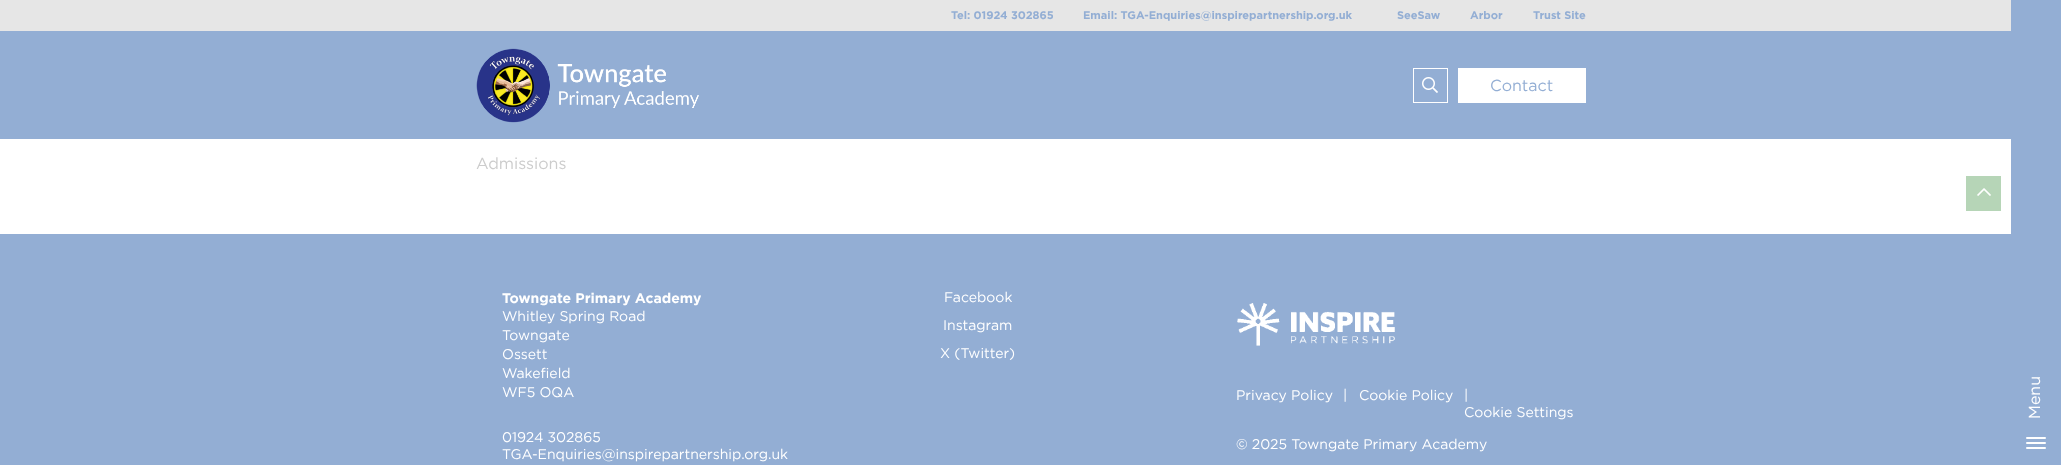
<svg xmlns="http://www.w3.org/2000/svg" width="2061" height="465">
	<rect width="100%" height="100%" fill="#FFFFFF" />
	<text x="476" y="169" font-family="Gotham" font-size="16" fill="#CCCCCC">Admissions</text>
	<rect x="0" y="0" width="2011" height="31" fill="#E6E6E6" />
	<g font-family="Gotham" font-size="11" font-weight="700" fill="#93AED4">
		<text x="951" y="19">Tel: 01924 302865</text>
		<text x="1083" y="19">Email: TGA-Enquiries@inspirepartnership.org.uk</text>
		<text x="1397" y="19">SeeSaw</text>
		<text x="1470" y="19">Arbor</text>
		<text x="1533" y="19">Trust Site</text>
	</g>
	<rect x="0" y="31" width="2011" height="108" fill="#93AED4" />
	<image x="476" y="48" width="223" height="75" href="assets/img1.png" />
	<rect x="1413.5" y="68.5" width="34" height="34" fill="none" stroke="#FFFFFF" />
	<image x="1422" y="77" width="16" height="16" href="assets/img2.png" />
	<rect x="1458" y="68" width="128" height="35" fill="#FFFFFF" />
	<text x="1490" y="91" font-family="Gotham" font-size="16" fill="#93AED4">Contact</text>
	<rect x="2011" y="0" width="50" height="465" fill="#93AED4" />
	<text x="2040" y="419" transform="rotate(-90 2040 419)" font-family="Gotham" font-size="16" fill="#FFFFFF">Menu</text>
	<rect x="2026" y="437" width="20" height="2" rx="1" fill="#FFFFFF" />
	<rect x="2026" y="442" width="20" height="2" rx="1" fill="#FFFFFF" />
	<rect x="2026" y="447" width="20" height="2" rx="1" fill="#FFFFFF" />
	<rect x="1966" y="176" width="35" height="35" fill="#B6D5B7" />
	<image x="1977" y="188" width="14" height="8" href="assets/img3.png" />
	<rect x="0" y="234" width="2011" height="231" fill="#93AED4" />
	<text x="502" y="303" font-family="Gotham" font-size="14" font-weight="700" fill="#FFFFFF">Towngate Primary Academy</text>
	<g font-family="Gotham" font-size="14" fill="#FFFFFF">
		<text x="502" y="321">Whitley Spring Road</text>
		<text x="502" y="340">Towngate</text>
		<text x="502" y="359">Ossett</text>
		<text x="502" y="378">Wakefield</text>
		<text x="502" y="397">WF5 OQA</text>
		<text x="502" y="442">01924 302865</text>
		<text x="502" y="459">TGA-Enquiries@inspirepartnership.org.uk</text>
		<text x="944" y="302">Facebook</text>
		<text x="943" y="330">Instagram</text>
		<text x="940" y="358">X (Twitter)</text>
	</g>
	<image x="1237" y="303" width="158" height="43" href="assets/img4.png" />
	<g font-family="Gotham" font-size="14" fill="#FFFFFF">
		<text x="1236" y="400">Privacy Policy</text>
		<text x="1343" y="400">|</text>
		<text x="1359" y="400">Cookie Policy</text>
		<text x="1464" y="400">|</text>
		<text x="1464" y="417">Cookie Settings</text>
		<text x="1236" y="449">© 2025 Towngate Primary Academy</text>
	</g>
</svg>
